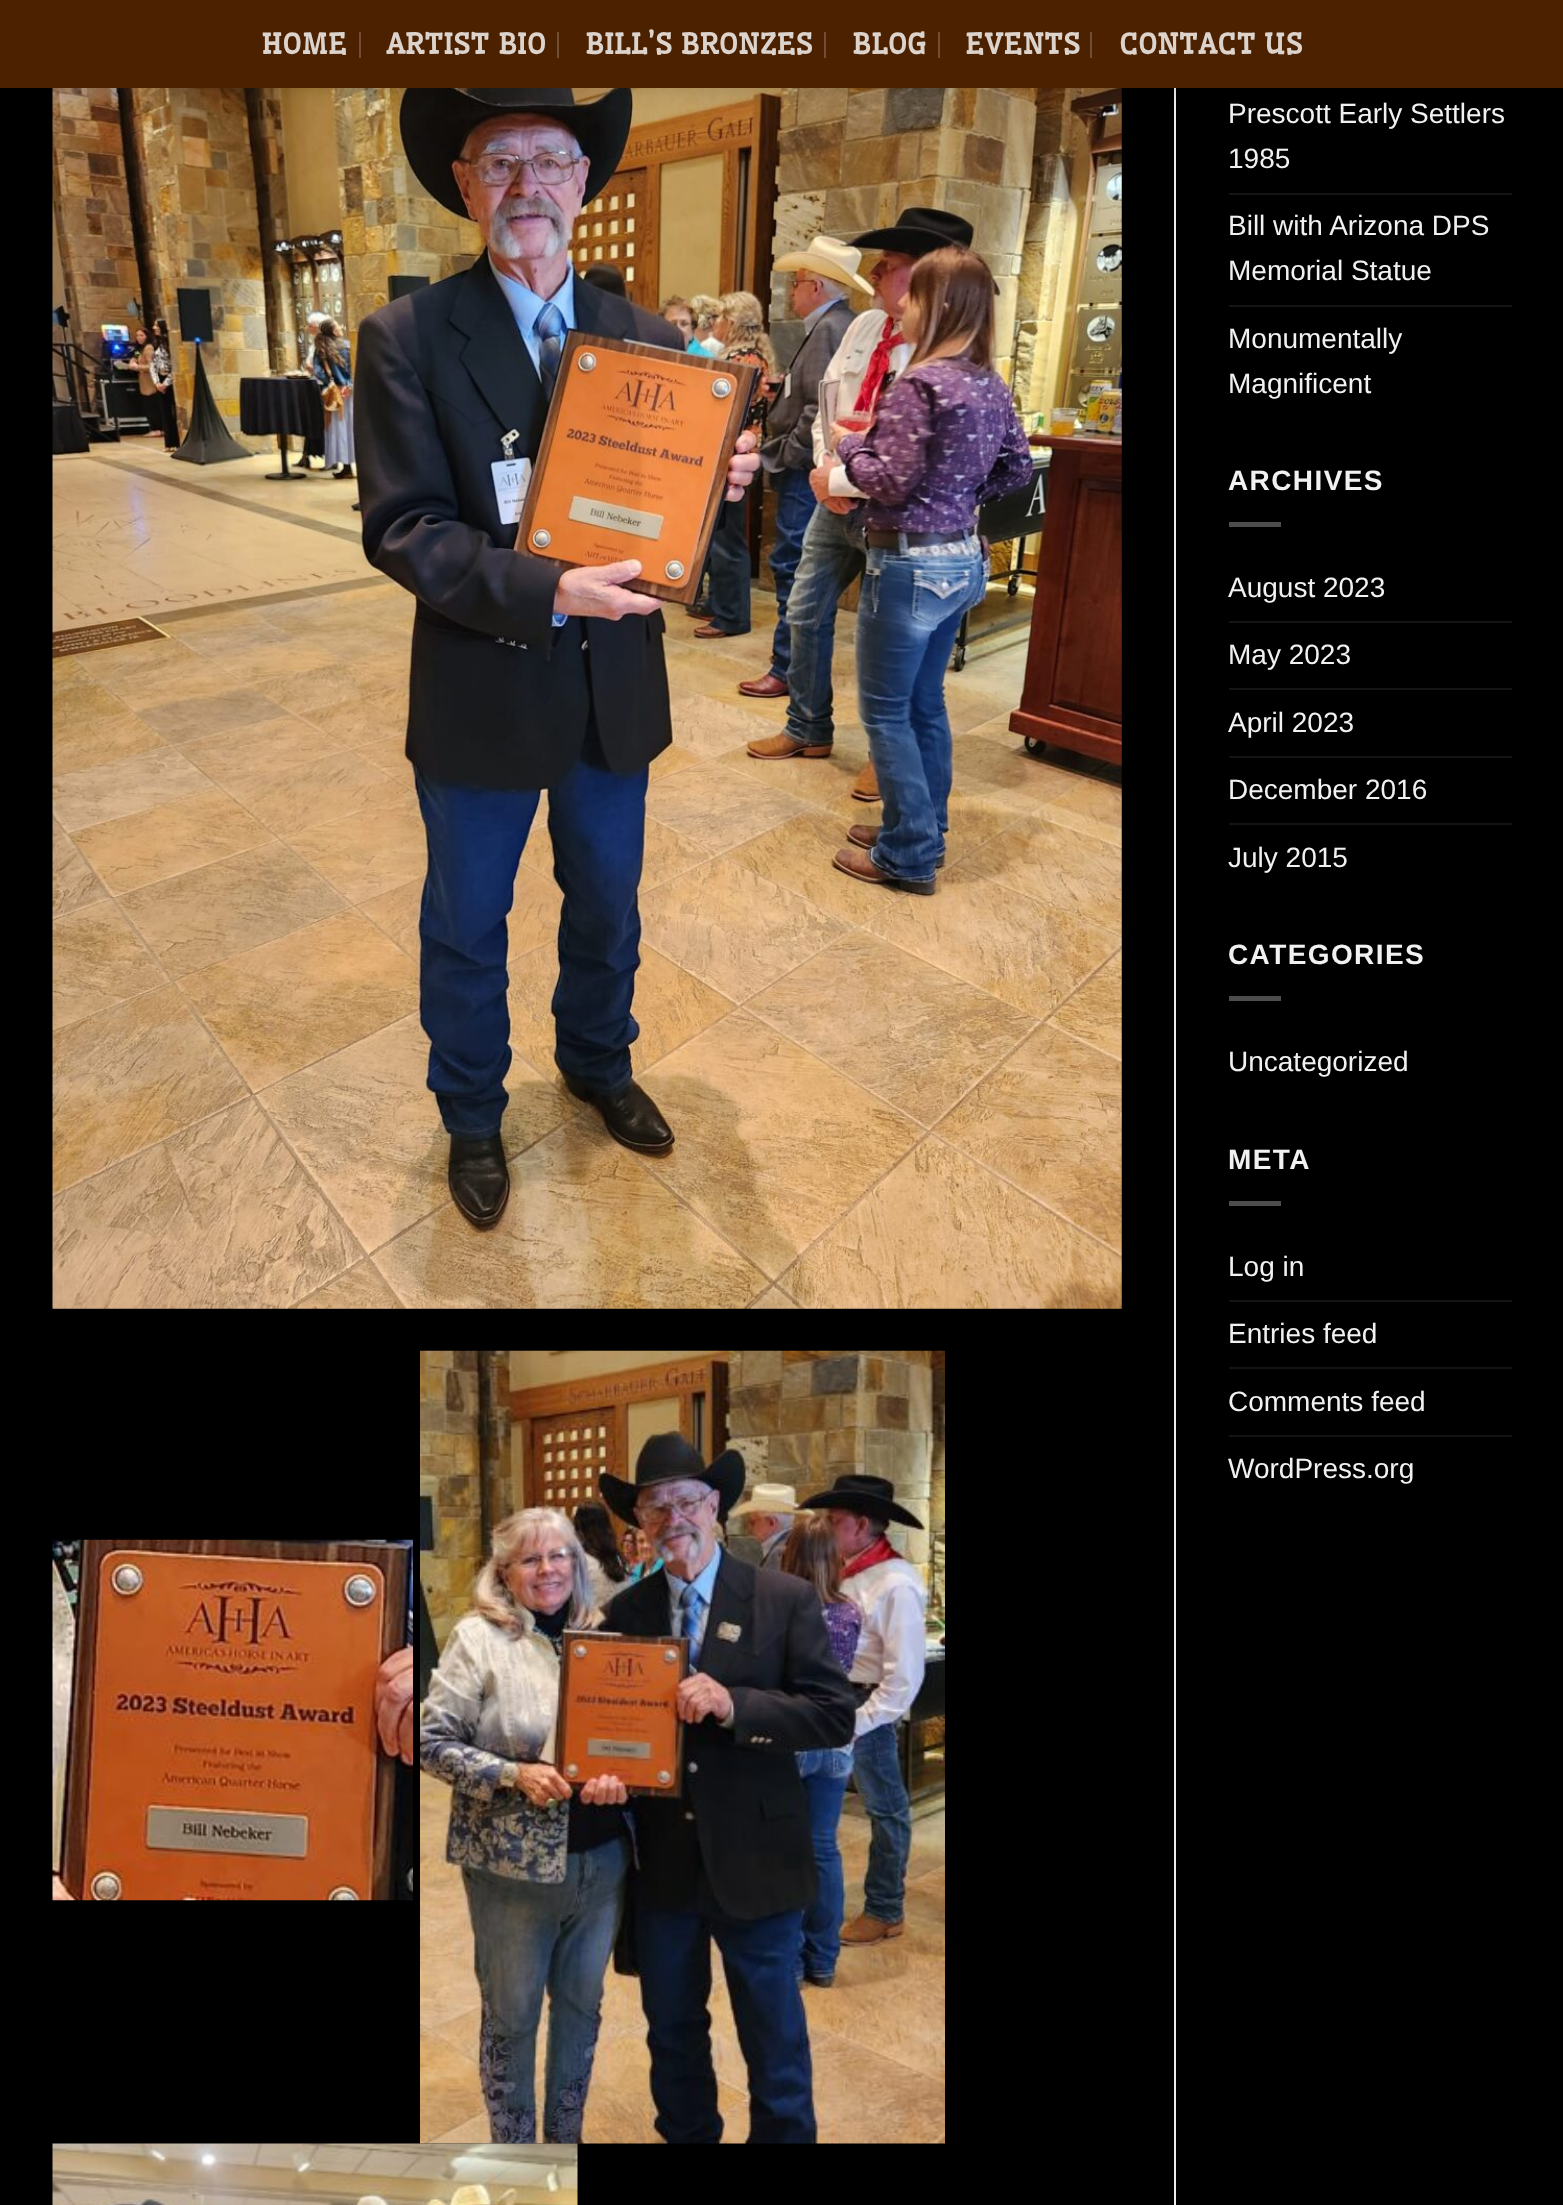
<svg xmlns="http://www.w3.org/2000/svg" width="1563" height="2205">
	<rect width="100%" height="100%" fill="#000000" />
	<image x="52" y="88" width="1070" height="1221" href="assets/img1.png" />
	<rect x="1174" y="88" width="2" height="2117" fill="#ECECEC" />
	<rect x="2" y="2" width="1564" height="87" fill="#000000" fill-opacity="0.15" filter="blur(9px)" />
	<rect x="0" y="0" width="1563" height="88" fill="#4C2100" />
	<text x="261" y="54" font-family="Wellfleet" font-size="28" font-weight="700" letter-spacing="0.5" fill="#DBD3CC">HOME</text>
	<rect x="359" y="32" width="2" height="26" fill="#704D33" />
	<text x="386" y="54" font-family="Wellfleet" font-size="28" font-weight="700" letter-spacing="0.5" fill="#DBD3CC">ARTIST BIO</text>
	<rect x="557" y="32" width="2" height="26" fill="#704D33" />
	<text x="585" y="54" font-family="Wellfleet" font-size="28" font-weight="700" letter-spacing="0.5" fill="#DBD3CC">BILL’S BRONZES</text>
	<rect x="824" y="32" width="2" height="26" fill="#704D33" />
	<text x="852" y="54" font-family="Wellfleet" font-size="28" font-weight="700" letter-spacing="0.5" fill="#DBD3CC">BLOG</text>
	<rect x="938" y="32" width="2" height="26" fill="#704D33" />
	<text x="965" y="54" font-family="Wellfleet" font-size="28" font-weight="700" letter-spacing="0.5" fill="#DBD3CC">EVENTS</text>
	<rect x="1090" y="32" width="2" height="26" fill="#704D33" />
	<text x="1119" y="54" font-family="Wellfleet" font-size="28" font-weight="700" letter-spacing="0.5" fill="#DBD3CC">CONTACT US</text>
	<image x="52" y="1539" width="361" height="362" href="assets/img2.png" />
	<image x="420" y="1350" width="525" height="794" href="assets/img3.png" />
	<image x="52" y="2143" width="526" height="62" href="assets/img4.png" />
	<g font-family="Liberation Sans" font-size="28" fill="#F1F1F1">
		<text x="1228" y="123">Prescott Early Settlers</text>
		<text x="1228" y="168">1985</text>
	</g>
	<rect x="1229" y="193" width="283" height="2" fill="#141414" />
	<g font-family="Liberation Sans" font-size="28" fill="#F1F1F1">
		<text x="1228" y="235">Bill with Arizona DPS</text>
		<text x="1228" y="280">Memorial Statue</text>
	</g>
	<rect x="1229" y="305" width="283" height="2" fill="#141414" />
	<g font-family="Liberation Sans" font-size="28" fill="#F1F1F1">
		<text x="1228" y="348">Monumentally</text>
		<text x="1228" y="393">Magnificent</text>
	</g>
	<text x="1228" y="490" font-family="Liberation Sans" font-size="28" font-weight="700" letter-spacing="1.4" fill="#F1F1F1">ARCHIVES</text>
	<rect x="1229" y="522" width="52" height="5" fill="#4D4D4D" />
	<text x="1228" y="597" font-family="Liberation Sans" font-size="28" fill="#F1F1F1">August 2023</text>
	<rect x="1229" y="621" width="283" height="2" fill="#141414" />
	<text x="1228" y="664" font-family="Liberation Sans" font-size="28" fill="#F1F1F1">May 2023</text>
	<rect x="1229" y="688" width="283" height="2" fill="#141414" />
	<text x="1228" y="732" font-family="Liberation Sans" font-size="28" fill="#F1F1F1">April 2023</text>
	<rect x="1229" y="756" width="283" height="2" fill="#141414" />
	<text x="1228" y="799" font-family="Liberation Sans" font-size="28" fill="#F1F1F1">December 2016</text>
	<rect x="1229" y="823" width="283" height="2" fill="#141414" />
	<text x="1228" y="867" font-family="Liberation Sans" font-size="28" fill="#F1F1F1">July 2015</text>
	<text x="1228" y="964" font-family="Liberation Sans" font-size="28" font-weight="700" letter-spacing="1.4" fill="#F1F1F1">CATEGORIES</text>
	<rect x="1229" y="996" width="52" height="5" fill="#4D4D4D" />
	<text x="1228" y="1071" font-family="Liberation Sans" font-size="28" fill="#F1F1F1">Uncategorized</text>
	<text x="1228" y="1169" font-family="Liberation Sans" font-size="28" font-weight="700" letter-spacing="1.4" fill="#F1F1F1">META</text>
	<rect x="1229" y="1201" width="52" height="5" fill="#4D4D4D" />
	<text x="1228" y="1276" font-family="Liberation Sans" font-size="28" fill="#F1F1F1">Log in</text>
	<rect x="1229" y="1300" width="283" height="2" fill="#141414" />
	<text x="1228" y="1343" font-family="Liberation Sans" font-size="28" fill="#F1F1F1">Entries feed</text>
	<rect x="1229" y="1367" width="283" height="2" fill="#141414" />
	<text x="1228" y="1411" font-family="Liberation Sans" font-size="28" fill="#F1F1F1">Comments feed</text>
	<rect x="1229" y="1435" width="283" height="2" fill="#141414" />
	<text x="1228" y="1478" font-family="Liberation Sans" font-size="28" fill="#F1F1F1">WordPress.org</text>
</svg>
